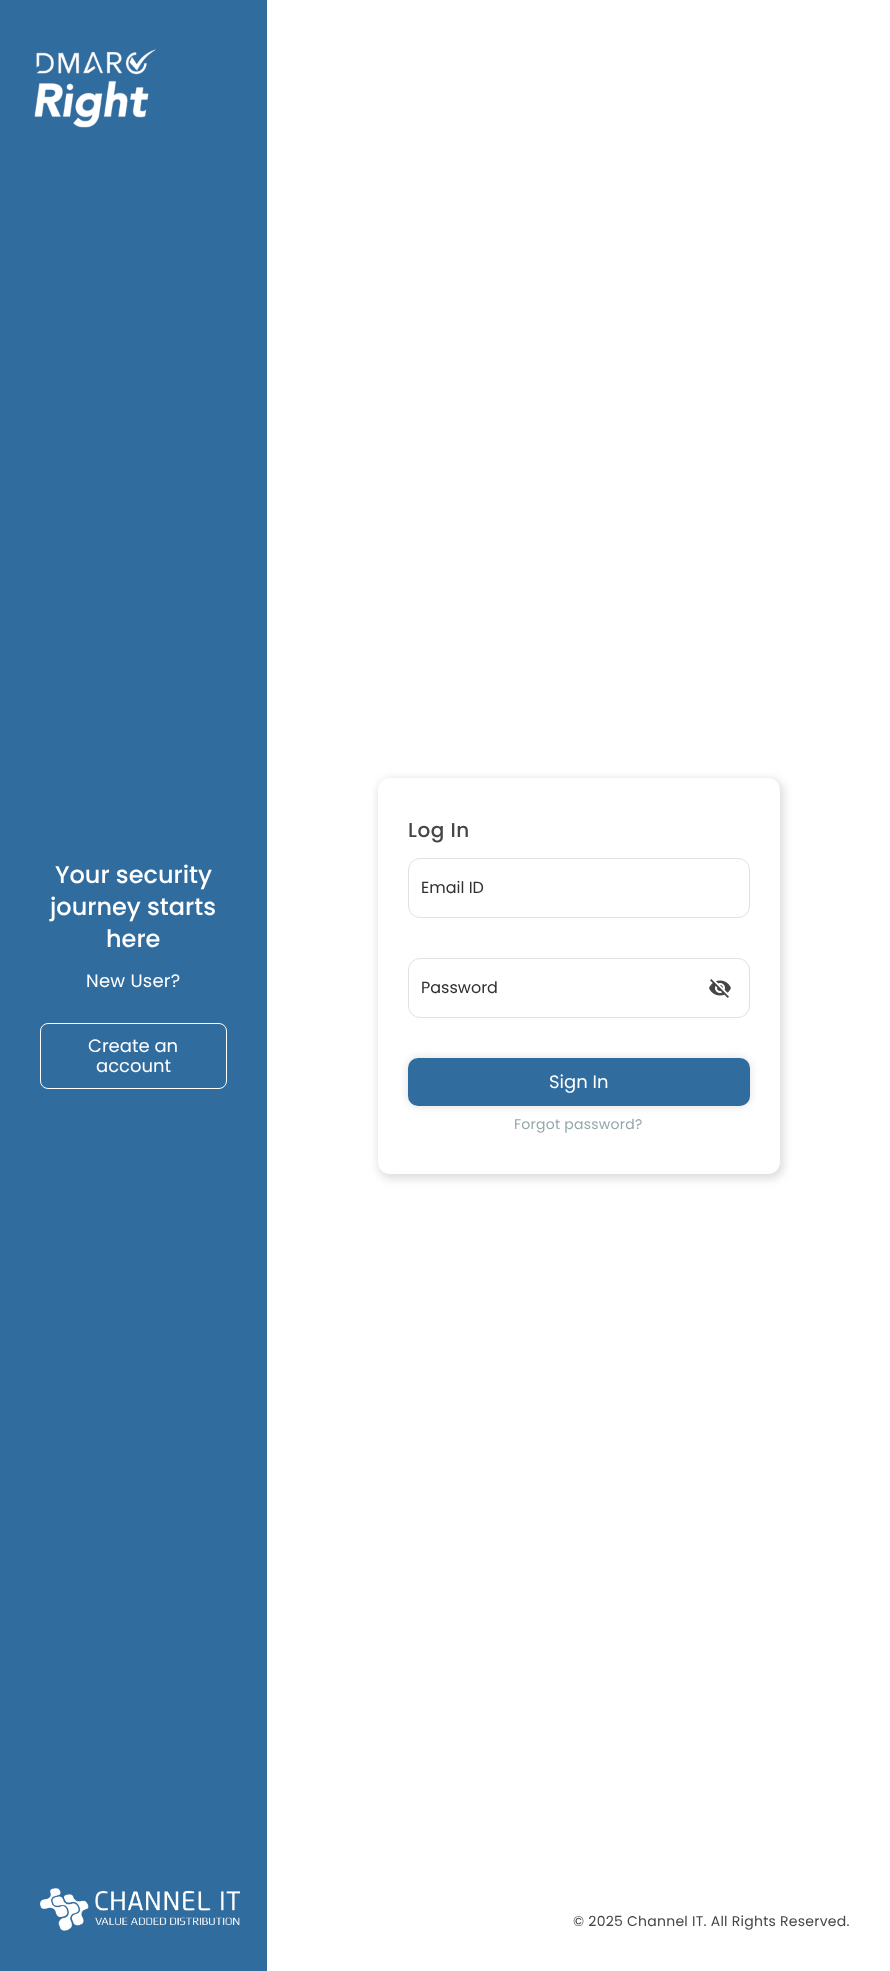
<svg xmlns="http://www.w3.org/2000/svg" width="890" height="1971">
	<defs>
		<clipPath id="clip1"><path d="M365 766H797V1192H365ZM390 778H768C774.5 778 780 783.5 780 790V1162C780 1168.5 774.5 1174 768 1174H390C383.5 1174 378 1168.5 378 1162V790C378 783.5 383.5 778 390 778Z" clip-rule="evenodd" /></clipPath>
	</defs>
	<rect width="100%" height="100%" fill="#FFFFFF" />
	<rect x="0" y="0" width="267" height="1971" fill="#316C9F" />
	<image x="34" y="49" width="122" height="79" href="assets/img1.png" />
	<g font-family="Poppins" font-size="24" font-weight="500" fill="#FFFFFF">
		<text x="55" y="883">Your security</text>
		<text x="50" y="915">journey starts</text>
		<text x="106" y="947">here</text>
	</g>
	<text x="86" y="987" font-family="Poppins" font-size="18" letter-spacing="0.25" fill="#FFFFFF">New User?</text>
	<rect x="40.5" y="1023.5" width="186" height="65" rx="7.5" fill="none" stroke="#FFFFFF" />
	<g font-family="Poppins" font-size="18" fill="#FFFFFF">
		<text x="88" y="1052">Create an</text>
		<text x="96" y="1072">account</text>
	</g>
	<image x="40" y="1888" width="200" height="43" href="assets/img2.png" />
	<g clip-path="url(#clip1)">
		<rect x="378" y="779" width="406" height="400" rx="14" fill="#939393" fill-opacity="0.3" filter="blur(4px)" />
	</g>
	<text x="408" y="837" font-family="Poppins" font-size="20" font-weight="500" letter-spacing="0.5" fill="#464547">Log In</text>
	<rect x="408.5" y="858.5" width="341" height="59" rx="11.5" fill="none" stroke="#DEE2E6" />
	<text x="421" y="893" font-family="Poppins" font-size="16" fill="#2F3031">Email ID</text>
	<rect x="408.5" y="958.5" width="341" height="59" rx="11.5" fill="none" stroke="#DEE2E6" />
	<text x="421" y="993" font-family="Poppins" font-size="16" fill="#2F3031">Password</text>
	<image x="709" y="979" width="22" height="19" href="assets/img3.png" />
	<rect x="408" y="1058" width="342" height="48" rx="10" fill="#DDDDDD" filter="blur(4px)" />
	<rect x="408" y="1058" width="342" height="48" rx="10" fill="#316C9F" />
	<text x="549" y="1088" font-family="Poppins" font-size="18" fill="#FFFFFF">Sign In</text>
	<text x="514" y="1129" font-family="Poppins" font-size="14" letter-spacing="0.25" fill="#95A7AD">Forgot password?</text>
	<text x="573" y="1926" font-family="Poppins" font-size="14" letter-spacing="0.25" fill="#464547">© 2025 Channel IT. All Rights Reserved.</text>
</svg>
